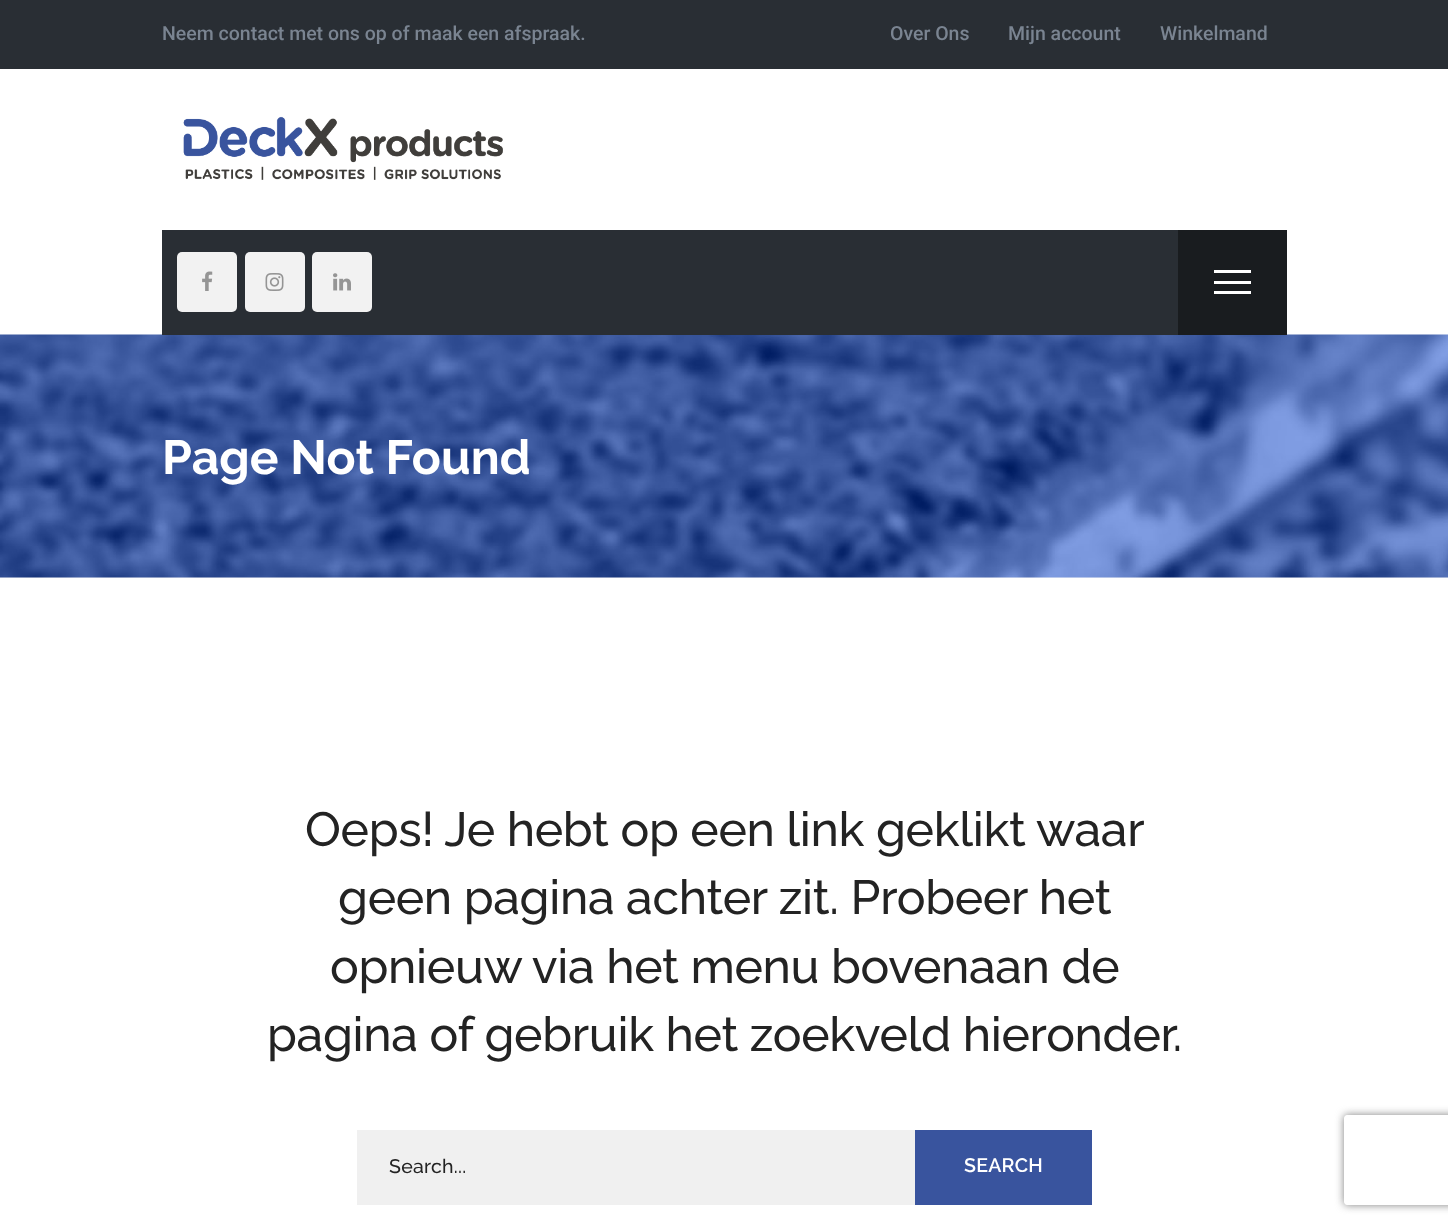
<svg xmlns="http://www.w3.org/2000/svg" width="1448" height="1225">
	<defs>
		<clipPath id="clip1"><path d="M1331 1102H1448V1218H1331ZM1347 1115H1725C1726.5 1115 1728 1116.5 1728 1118V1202C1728 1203.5 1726.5 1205 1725 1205H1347C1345.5 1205 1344 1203.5 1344 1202V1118C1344 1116.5 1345.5 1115 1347 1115Z" clip-rule="evenodd" /></clipPath>
	</defs>
	<rect width="100%" height="100%" fill="#FFFFFF" />
	<rect x="0" y="0" width="1448" height="69" fill="#292E34" />
	<g font-family="Roboto" font-size="19.5" font-weight="500" fill="#7A8491">
		<text x="162" y="40">Neem contact met ons op of maak een afspraak.</text>
		<text x="890" y="40">Over Ons</text>
		<text x="1008" y="40">Mijn account</text>
		<text x="1160" y="40">Winkelmand</text>
	</g>
	<image x="183" y="116" width="320" height="64" href="assets/img1.png" />
	<rect x="0" y="577" width="1448" height="1" fill="#F7F7F7" />
	<image x="0" y="334" width="1448" height="244" href="assets/img5.png" />
	<rect x="162" y="230" width="1016" height="105" fill="#292E34" />
	<rect x="177" y="252" width="60" height="60" rx="5" fill="#F2F2F2" />
	<image x="202" y="271" width="11" height="20" href="assets/img2.png" />
	<rect x="245" y="252" width="60" height="60" rx="5" fill="#F2F2F2" />
	<image x="265" y="273" width="19" height="18" href="assets/img3.png" />
	<rect x="312" y="252" width="60" height="60" rx="5" fill="#F2F2F2" />
	<image x="333" y="273" width="18" height="18" href="assets/img4.png" />
	<rect x="1178" y="230" width="109" height="105" fill="#191C1F" />
	<rect x="1214" y="270" width="37" height="3" fill="#FFFFFF" />
	<rect x="1214" y="281" width="37" height="3" fill="#FFFFFF" />
	<rect x="1214" y="291" width="37" height="3" fill="#FFFFFF" />
	<text x="162" y="474" font-family="Raleway" font-size="48" font-weight="700" letter-spacing="0.1" fill="#FFFFFF">Page Not Found</text>
	<g font-family="Raleway" font-size="48" font-weight="500" letter-spacing="-0.3" fill="#232323">
		<text x="305" y="846">Oeps! Je hebt op een link geklikt waar</text>
		<text x="338" y="914">geen pagina achter zit. Probeer het</text>
		<text x="330" y="983">opnieuw via het menu bovenaan de</text>
		<text x="267" y="1051">pagina of gebruik het zoekveld hieronder.</text>
	</g>
	<rect x="357" y="1130" width="558" height="75" fill="#F0F0F0" />
	<text x="389" y="1173" font-family="Raleway" font-size="19.5" font-weight="500" letter-spacing="0.25" fill="#232323">Search...</text>
	<rect x="915" y="1130" width="177" height="75" fill="#39549E" />
	<text x="964" y="1172" font-family="Raleway" font-size="19.5" font-weight="600" letter-spacing="0.25" fill="#FFFFFF">SEARCH</text>
	<g clip-path="url(#clip1)">
		<rect x="1344" y="1115" width="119" height="90" rx="3" fill="#808080" filter="blur(4px)" />
	</g>
</svg>
